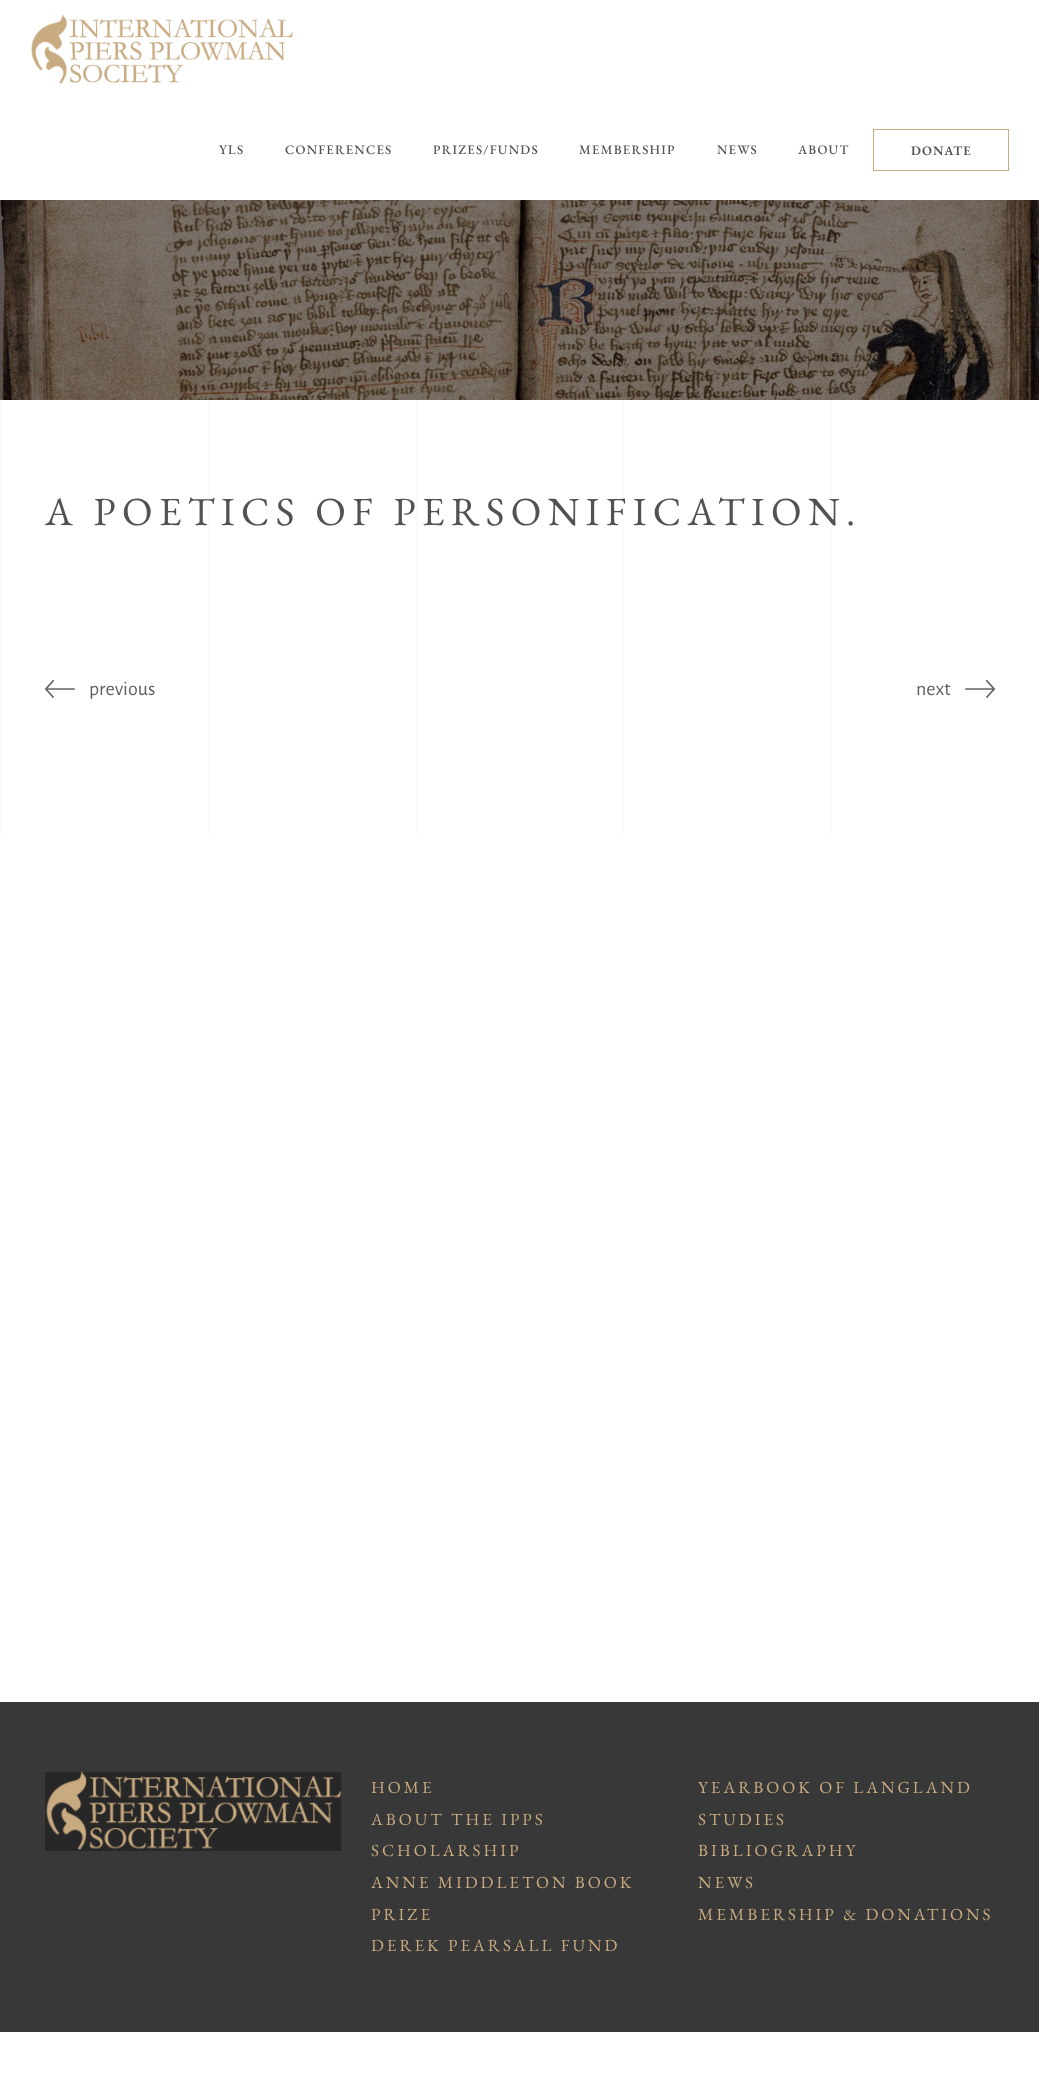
<svg xmlns="http://www.w3.org/2000/svg" width="1039" height="2095">
	<rect width="100%" height="100%" fill="#FFFFFF" />
	<image x="31" y="15" width="262" height="69" href="assets/img1.png" />
	<g font-family="EB Garamond" font-size="13" font-weight="500" letter-spacing="1.25" fill="#525252">
		<text x="219" y="154">YLS</text>
		<text x="285" y="154">CONFERENCES</text>
		<text x="433" y="154">PRIZES/FUNDS</text>
		<text x="579" y="154">MEMBERSHIP</text>
		<text x="717" y="154">NEWS</text>
		<text x="798" y="154">ABOUT</text>
	</g>
	<rect x="873.5" y="129.5" width="135" height="41" fill="none" stroke="#C9AB81" />
	<text x="911" y="155" font-family="EB Garamond" font-size="13" font-weight="600" letter-spacing="1" fill="#525252">DONATE</text>
	<image x="0" y="200" width="1039" height="200" href="assets/img2.png" />
	<rect x="0" y="400" width="1" height="436" fill="#F8F8F8" />
	<rect x="208" y="400" width="1" height="436" fill="#F8F8F8" />
	<rect x="416" y="400" width="1" height="436" fill="#F8F8F8" />
	<rect x="623" y="400" width="1" height="436" fill="#F8F8F8" />
	<rect x="831" y="400" width="1" height="436" fill="#F8F8F8" />
	<text x="45" y="525" font-family="EB Garamond" font-size="40" letter-spacing="6.4" fill="#525252">A POETICS OF PERSONIFICATION.</text>
	<image x="45" y="680" width="30" height="18" href="assets/img3.png" />
	<g font-family="Alegreya Sans" font-size="20" fill="#5F5F5F">
		<text x="89" y="695">previous</text>
		<text x="916" y="695">next</text>
	</g>
	<image x="965" y="680" width="30" height="18" href="assets/img4.png" />
	<rect x="0" y="1702" width="1039" height="330" fill="#383838" />
	<image x="45" y="1772" width="297" height="79" href="assets/img5.png" />
	<g font-family="EB Garamond" font-size="17" letter-spacing="3" fill="#C9AB81">
		<text x="371" y="1793">HOME</text>
		<text x="371" y="1825">ABOUT THE IPPS</text>
		<text x="371" y="1856">SCHOLARSHIP</text>
		<text x="371" y="1888">ANNE MIDDLETON BOOK</text>
		<text x="371" y="1920">PRIZE</text>
		<text x="371" y="1951">DEREK PEARSALL FUND</text>
		<text x="698" y="1793">YEARBOOK OF LANGLAND</text>
		<text x="698" y="1825">STUDIES</text>
		<text x="698" y="1856">BIBLIOGRAPHY</text>
		<text x="698" y="1888">NEWS</text>
		<text x="698" y="1920">MEMBERSHIP &amp; DONATIONS</text>
	</g>
</svg>
